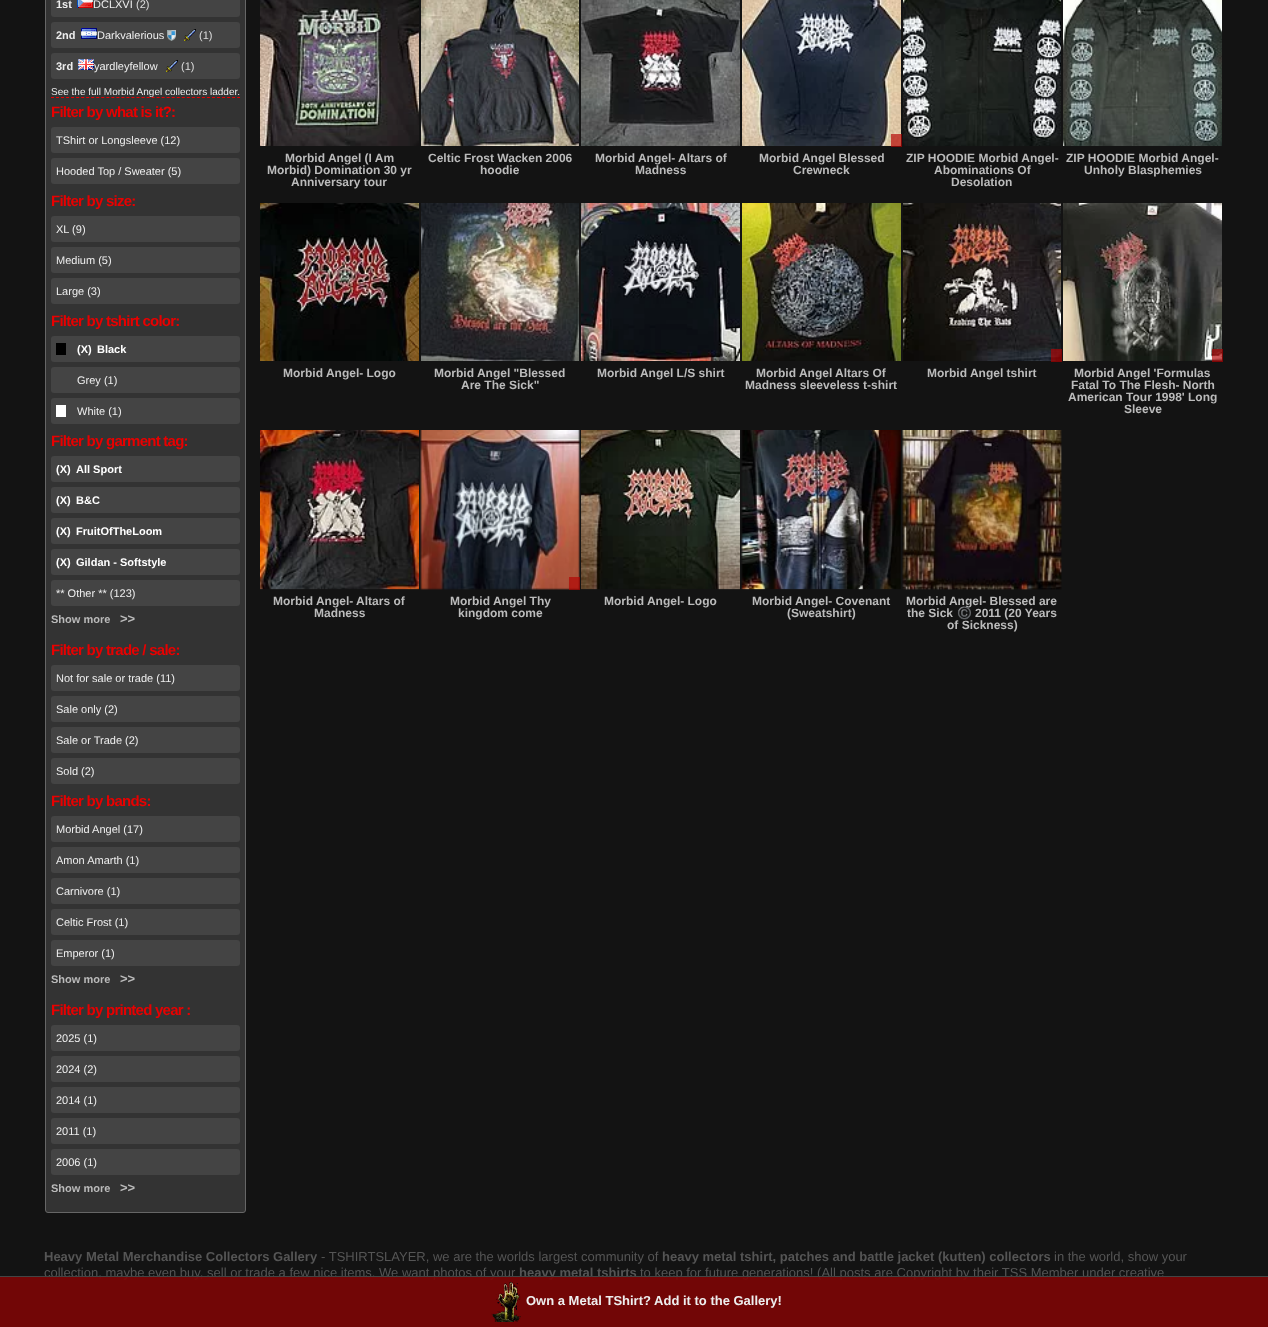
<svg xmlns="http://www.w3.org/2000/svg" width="1268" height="1327">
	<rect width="100%" height="100%" fill="#131313" />
	<rect x="45.5" y="-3.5" width="200" height="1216" rx="2.5" fill="#333333" stroke="#666666" />
	<rect x="51" y="-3" width="189" height="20" rx="3" fill="#444444" />
	<text x="56" y="8" font-family="Liberation Sans" font-size="11" font-weight="700" fill="#EEEEEE">1st</text>
	<image x="77" y="0" width="16" height="8" href="assets/img1.png" />
	<text x="93" y="8" font-family="Liberation Sans" font-size="11" fill="#EEEEEE">DCLXVI</text>
	<text x="136" y="8" font-family="Liberation Sans" font-size="11" fill="#DDDDDD">(2)</text>
	<rect x="51" y="22" width="189" height="26" rx="3" fill="#444444" />
	<text x="56" y="39" font-family="Liberation Sans" font-size="11" font-weight="700" fill="#EEEEEE">2nd</text>
	<image x="184" y="29" width="12" height="12" href="assets/img2.png" />
	<image x="81" y="28" width="16" height="11" href="assets/img3.png" />
	<text x="97" y="39" font-family="Liberation Sans" font-size="11" fill="#EEEEEE">Darkvalerious</text>
	<image x="167" y="30" width="9" height="11" href="assets/img4.png" />
	<text x="199" y="39" font-family="Liberation Sans" font-size="11" fill="#DDDDDD">(1)</text>
	<rect x="51" y="53" width="189" height="26" rx="3" fill="#444444" />
	<text x="56" y="70" font-family="Liberation Sans" font-size="11" font-weight="700" fill="#EEEEEE">3rd</text>
	<image x="166" y="60" width="12" height="12" href="assets/img5.png" />
	<image x="78" y="59" width="16" height="11" href="assets/img6.png" />
	<text x="94" y="70" font-family="Liberation Sans" font-size="11" fill="#EEEEEE">yardleyfellow</text>
	<text x="181" y="70" font-family="Liberation Sans" font-size="11" fill="#DDDDDD">(1)</text>
	<path d="M51 97.5H240" fill="none" stroke="#E80000" stroke-dasharray="3 2.03" />
	<text x="51" y="95" font-family="Liberation Sans" font-size="10" fill="#EEEEEE">See the full Morbid Angel collectors ladder.</text>
	<text x="51" y="117" font-family="Liberation Sans" font-size="15" font-weight="700" letter-spacing="-0.75" fill="#E80000">Filter by what is it?:</text>
	<rect x="51" y="127" width="189" height="26" rx="3" fill="#444444" />
	<text x="56" y="144" font-family="Liberation Sans" font-size="11" fill="#EEEEEE">TShirt or Longsleeve (12)</text>
	<rect x="51" y="158" width="189" height="26" rx="3" fill="#444444" />
	<text x="56" y="175" font-family="Liberation Sans" font-size="11" fill="#EEEEEE">Hooded Top / Sweater (5)</text>
	<text x="51" y="206" font-family="Liberation Sans" font-size="15" font-weight="700" letter-spacing="-0.75" fill="#E80000">Filter by size:</text>
	<rect x="51" y="216" width="189" height="26" rx="3" fill="#444444" />
	<text x="56" y="233" font-family="Liberation Sans" font-size="11" fill="#EEEEEE">XL (9)</text>
	<rect x="51" y="247" width="189" height="26" rx="3" fill="#444444" />
	<text x="56" y="264" font-family="Liberation Sans" font-size="11" fill="#EEEEEE">Medium (5)</text>
	<rect x="51" y="278" width="189" height="26" rx="3" fill="#444444" />
	<text x="56" y="295" font-family="Liberation Sans" font-size="11" fill="#EEEEEE">Large (3)</text>
	<text x="51" y="326" font-family="Liberation Sans" font-size="15" font-weight="700" letter-spacing="-0.75" fill="#E80000">Filter by tshirt color:</text>
	<rect x="51" y="336" width="189" height="26" rx="3" fill="#444444" />
	<rect x="56" y="343" width="10" height="12" fill="#000000" />
	<g font-family="Liberation Sans" font-size="11" font-weight="700" fill="#FFFFFF">
		<text x="77" y="353">(X)</text>
		<text x="97" y="353">Black</text>
	</g>
	<rect x="51" y="367" width="189" height="26" rx="3" fill="#444444" />
	<text x="77" y="384" font-family="Liberation Sans" font-size="11" fill="#EEEEEE">Grey (1)</text>
	<rect x="51" y="398" width="189" height="26" rx="3" fill="#444444" />
	<rect x="56" y="405" width="10" height="12" fill="#FFFFFF" />
	<text x="77" y="415" font-family="Liberation Sans" font-size="11" fill="#EEEEEE">White (1)</text>
	<text x="51" y="446" font-family="Liberation Sans" font-size="15" font-weight="700" letter-spacing="-0.75" fill="#E80000">Filter by garment tag:</text>
	<rect x="51" y="456" width="189" height="26" rx="3" fill="#444444" />
	<g font-family="Liberation Sans" font-size="11" font-weight="700" fill="#FFFFFF">
		<text x="56" y="473">(X)</text>
		<text x="76" y="473">All Sport</text>
	</g>
	<rect x="51" y="487" width="189" height="26" rx="3" fill="#444444" />
	<g font-family="Liberation Sans" font-size="11" font-weight="700" fill="#FFFFFF">
		<text x="56" y="504">(X)</text>
		<text x="76" y="504">B&amp;C</text>
	</g>
	<rect x="51" y="518" width="189" height="26" rx="3" fill="#444444" />
	<g font-family="Liberation Sans" font-size="11" font-weight="700" fill="#FFFFFF">
		<text x="56" y="535">(X)</text>
		<text x="76" y="535">FruitOfTheLoom</text>
	</g>
	<rect x="51" y="549" width="189" height="26" rx="3" fill="#444444" />
	<g font-family="Liberation Sans" font-size="11" font-weight="700" fill="#FFFFFF">
		<text x="56" y="566">(X)</text>
		<text x="76" y="566">Gildan - Softstyle</text>
	</g>
	<rect x="51" y="580" width="189" height="26" rx="3" fill="#444444" />
	<text x="56" y="597" font-family="Liberation Sans" font-size="11" fill="#EEEEEE">** Other ** (123)</text>
	<text x="51" y="623" font-family="Liberation Sans" font-size="11" font-weight="700" fill="#BBBBBB">Show more</text>
	<text x="120" y="623" font-family="Liberation Sans" font-size="13" font-weight="700" fill="#BBBBBB">&gt;&gt;</text>
	<text x="51" y="655" font-family="Liberation Sans" font-size="15" font-weight="700" letter-spacing="-0.75" fill="#E80000">Filter by trade / sale:</text>
	<rect x="51" y="665" width="189" height="26" rx="3" fill="#444444" />
	<text x="56" y="682" font-family="Liberation Sans" font-size="11" fill="#EEEEEE">Not for sale or trade (11)</text>
	<rect x="51" y="696" width="189" height="26" rx="3" fill="#444444" />
	<text x="56" y="713" font-family="Liberation Sans" font-size="11" fill="#EEEEEE">Sale only (2)</text>
	<rect x="51" y="727" width="189" height="26" rx="3" fill="#444444" />
	<text x="56" y="744" font-family="Liberation Sans" font-size="11" fill="#EEEEEE">Sale or Trade (2)</text>
	<rect x="51" y="758" width="189" height="26" rx="3" fill="#444444" />
	<text x="56" y="775" font-family="Liberation Sans" font-size="11" fill="#EEEEEE">Sold (2)</text>
	<text x="51" y="806" font-family="Liberation Sans" font-size="15" font-weight="700" letter-spacing="-0.75" fill="#E80000">Filter by bands:</text>
	<rect x="51" y="816" width="189" height="26" rx="3" fill="#444444" />
	<text x="56" y="833" font-family="Liberation Sans" font-size="11" fill="#EEEEEE">Morbid Angel (17)</text>
	<rect x="51" y="847" width="189" height="26" rx="3" fill="#444444" />
	<text x="56" y="864" font-family="Liberation Sans" font-size="11" fill="#EEEEEE">Amon Amarth (1)</text>
	<rect x="51" y="878" width="189" height="26" rx="3" fill="#444444" />
	<text x="56" y="895" font-family="Liberation Sans" font-size="11" fill="#EEEEEE">Carnivore (1)</text>
	<rect x="51" y="909" width="189" height="26" rx="3" fill="#444444" />
	<text x="56" y="926" font-family="Liberation Sans" font-size="11" fill="#EEEEEE">Celtic Frost (1)</text>
	<rect x="51" y="940" width="189" height="26" rx="3" fill="#444444" />
	<text x="56" y="957" font-family="Liberation Sans" font-size="11" fill="#EEEEEE">Emperor (1)</text>
	<text x="51" y="983" font-family="Liberation Sans" font-size="11" font-weight="700" fill="#BBBBBB">Show more</text>
	<text x="120" y="983" font-family="Liberation Sans" font-size="13" font-weight="700" fill="#BBBBBB">&gt;&gt;</text>
	<text x="51" y="1015" font-family="Liberation Sans" font-size="15" font-weight="700" letter-spacing="-0.75" fill="#E80000">Filter by printed year :</text>
	<rect x="51" y="1025" width="189" height="26" rx="3" fill="#444444" />
	<text x="56" y="1042" font-family="Liberation Sans" font-size="11" fill="#EEEEEE">2025 (1)</text>
	<rect x="51" y="1056" width="189" height="26" rx="3" fill="#444444" />
	<text x="56" y="1073" font-family="Liberation Sans" font-size="11" fill="#EEEEEE">2024 (2)</text>
	<rect x="51" y="1087" width="189" height="26" rx="3" fill="#444444" />
	<text x="56" y="1104" font-family="Liberation Sans" font-size="11" fill="#EEEEEE">2014 (1)</text>
	<rect x="51" y="1118" width="189" height="26" rx="3" fill="#444444" />
	<text x="56" y="1135" font-family="Liberation Sans" font-size="11" fill="#EEEEEE">2011 (1)</text>
	<rect x="51" y="1149" width="189" height="26" rx="3" fill="#444444" />
	<text x="56" y="1166" font-family="Liberation Sans" font-size="11" fill="#EEEEEE">2006 (1)</text>
	<text x="51" y="1192" font-family="Liberation Sans" font-size="11" font-weight="700" fill="#BBBBBB">Show more</text>
	<text x="120" y="1192" font-family="Liberation Sans" font-size="13" font-weight="700" fill="#BBBBBB">&gt;&gt;</text>
	<image x="260" y="0" width="159" height="146" href="assets/img7.png" />
	<g font-family="Liberation Sans" font-size="12" font-weight="700" fill="#BBBBBB">
		<text x="285" y="162">Morbid Angel (I Am</text>
		<text x="267" y="174">Morbid) Domination 30 yr</text>
		<text x="291" y="186">Anniversary tour</text>
	</g>
	<image x="421" y="0" width="158" height="146" href="assets/img8.png" />
	<g font-family="Liberation Sans" font-size="12" font-weight="700" fill="#BBBBBB">
		<text x="428" y="162">Celtic Frost Wacken 2006</text>
		<text x="480" y="174">hoodie</text>
	</g>
	<image x="581" y="0" width="159" height="146" href="assets/img9.png" />
	<g font-family="Liberation Sans" font-size="12" font-weight="700" fill="#BBBBBB">
		<text x="595" y="162">Morbid Angel- Altars of</text>
		<text x="635" y="174">Madness</text>
	</g>
	<image x="742" y="0" width="159" height="146" href="assets/img10.png" />
	<rect x="891" y="134" width="11" height="13" fill="#B40000" fill-opacity="0.65" />
	<g font-family="Liberation Sans" font-size="12" font-weight="700" fill="#BBBBBB">
		<text x="759" y="162">Morbid Angel Blessed</text>
		<text x="793" y="174">Crewneck</text>
	</g>
	<image x="903" y="0" width="158" height="146" href="assets/img11.png" />
	<g font-family="Liberation Sans" font-size="12" font-weight="700" fill="#BBBBBB">
		<text x="906" y="162">ZIP HOODIE Morbid Angel-</text>
		<text x="934" y="174">Abominations Of</text>
		<text x="951" y="186">Desolation</text>
	</g>
	<image x="1063" y="0" width="159" height="146" href="assets/img12.png" />
	<g font-family="Liberation Sans" font-size="12" font-weight="700" fill="#BBBBBB">
		<text x="1066" y="162">ZIP HOODIE Morbid Angel-</text>
		<text x="1084" y="174">Unholy Blasphemies</text>
	</g>
	<image x="260" y="203" width="159" height="158" href="assets/img13.png" />
	<text x="283" y="377" font-family="Liberation Sans" font-size="12" font-weight="700" fill="#BBBBBB">Morbid Angel- Logo</text>
	<image x="421" y="203" width="158" height="158" href="assets/img14.png" />
	<g font-family="Liberation Sans" font-size="12" font-weight="700" fill="#BBBBBB">
		<text x="434" y="377">Morbid Angel "Blessed</text>
		<text x="461" y="389">Are The Sick"</text>
	</g>
	<image x="581" y="203" width="159" height="158" href="assets/img15.png" />
	<text x="597" y="377" font-family="Liberation Sans" font-size="12" font-weight="700" fill="#BBBBBB">Morbid Angel L/S shirt</text>
	<image x="742" y="203" width="159" height="158" href="assets/img16.png" />
	<g font-family="Liberation Sans" font-size="12" font-weight="700" fill="#BBBBBB">
		<text x="756" y="377">Morbid Angel Altars Of</text>
		<text x="745" y="389">Madness sleeveless t-shirt</text>
	</g>
	<image x="903" y="203" width="158" height="158" href="assets/img17.png" />
	<rect x="1051" y="349" width="11" height="13" fill="#B40000" fill-opacity="0.65" />
	<text x="927" y="377" font-family="Liberation Sans" font-size="12" font-weight="700" fill="#BBBBBB">Morbid Angel tshirt</text>
	<image x="1063" y="203" width="159" height="158" href="assets/img18.png" />
	<rect x="1212" y="349" width="11" height="13" fill="#B40000" fill-opacity="0.65" />
	<g font-family="Liberation Sans" font-size="12" font-weight="700" fill="#BBBBBB">
		<text x="1074" y="377">Morbid Angel 'Formulas</text>
		<text x="1071" y="389">Fatal To The Flesh- North</text>
		<text x="1068" y="401">American Tour 1998' Long</text>
		<text x="1124" y="413">Sleeve</text>
	</g>
	<image x="260" y="430" width="159" height="160" href="assets/img19.png" />
	<g font-family="Liberation Sans" font-size="12" font-weight="700" fill="#BBBBBB">
		<text x="273" y="605">Morbid Angel- Altars of</text>
		<text x="314" y="617">Madness</text>
	</g>
	<image x="420" y="430" width="160" height="160" href="assets/img20.png" />
	<rect x="569" y="577" width="11" height="13" fill="#B40000" fill-opacity="0.65" />
	<g font-family="Liberation Sans" font-size="12" font-weight="700" fill="#BBBBBB">
		<text x="450" y="605">Morbid Angel Thy</text>
		<text x="458" y="617">kingdom come</text>
	</g>
	<image x="581" y="430" width="159" height="160" href="assets/img21.png" />
	<text x="604" y="605" font-family="Liberation Sans" font-size="12" font-weight="700" fill="#BBBBBB">Morbid Angel- Logo</text>
	<image x="741" y="430" width="160" height="160" href="assets/img22.png" />
	<g font-family="Liberation Sans" font-size="12" font-weight="700" fill="#BBBBBB">
		<text x="752" y="605">Morbid Angel- Covenant</text>
		<text x="787" y="617">(Sweatshirt)</text>
	</g>
	<image x="902" y="430" width="160" height="160" href="assets/img23.png" />
	<g font-family="Liberation Sans" font-size="12" font-weight="700" fill="#BBBBBB">
		<text x="906" y="605">Morbid Angel- Blessed are</text>
		<text x="907" y="617">the Sick</text>
	</g>
	<text x="957" y="617" font-family="Noto Color Emoji" font-size="12" font-weight="700" fill="#BBBBBB">©️</text>
	<g font-family="Liberation Sans" font-size="12" font-weight="700" fill="#BBBBBB">
		<text x="975" y="617">2011 (20 Years</text>
		<text x="947" y="629">of Sickness)</text>
	</g>
	<text x="44" y="1261" font-family="Liberation Sans" font-size="13" font-weight="700" fill="#555555">Heavy Metal Merchandise Collectors Gallery</text>
	<text x="321" y="1261" font-family="Liberation Sans" font-size="13" fill="#555555">‐ TSHIRTSLAYER, we are the worlds largest community of</text>
	<text x="662" y="1261" font-family="Liberation Sans" font-size="13" font-weight="700" fill="#555555">heavy metal tshirt, patches and battle jacket (kutten) collectors</text>
	<g font-family="Liberation Sans" font-size="13" fill="#555555">
		<text x="1054" y="1261">in the world, show your</text>
		<text x="44" y="1277">collection, maybe even buy, sell or trade a few nice items. We want photos of your</text>
	</g>
	<text x="519" y="1277" font-family="Liberation Sans" font-size="13" font-weight="700" fill="#555555">heavy metal tshirts</text>
	<text x="640" y="1277" font-family="Liberation Sans" font-size="13" fill="#555555">to keep for future generations! (All posts are Copyright by their TSS Member under creative</text>
	<rect x="0" y="1277" width="1268" height="50" fill="#7C0606" fill-opacity="0.91" />
	<rect x="0" y="1276" width="1268" height="1" fill="#444444" />
	<image x="491" y="1282" width="30" height="40" href="assets/img24.png" />
	<text x="526" y="1305" font-family="Liberation Sans" font-size="13" font-weight="700" fill="#EEEEEE">Own a Metal TShirt? Add it to the Gallery!</text>
</svg>
